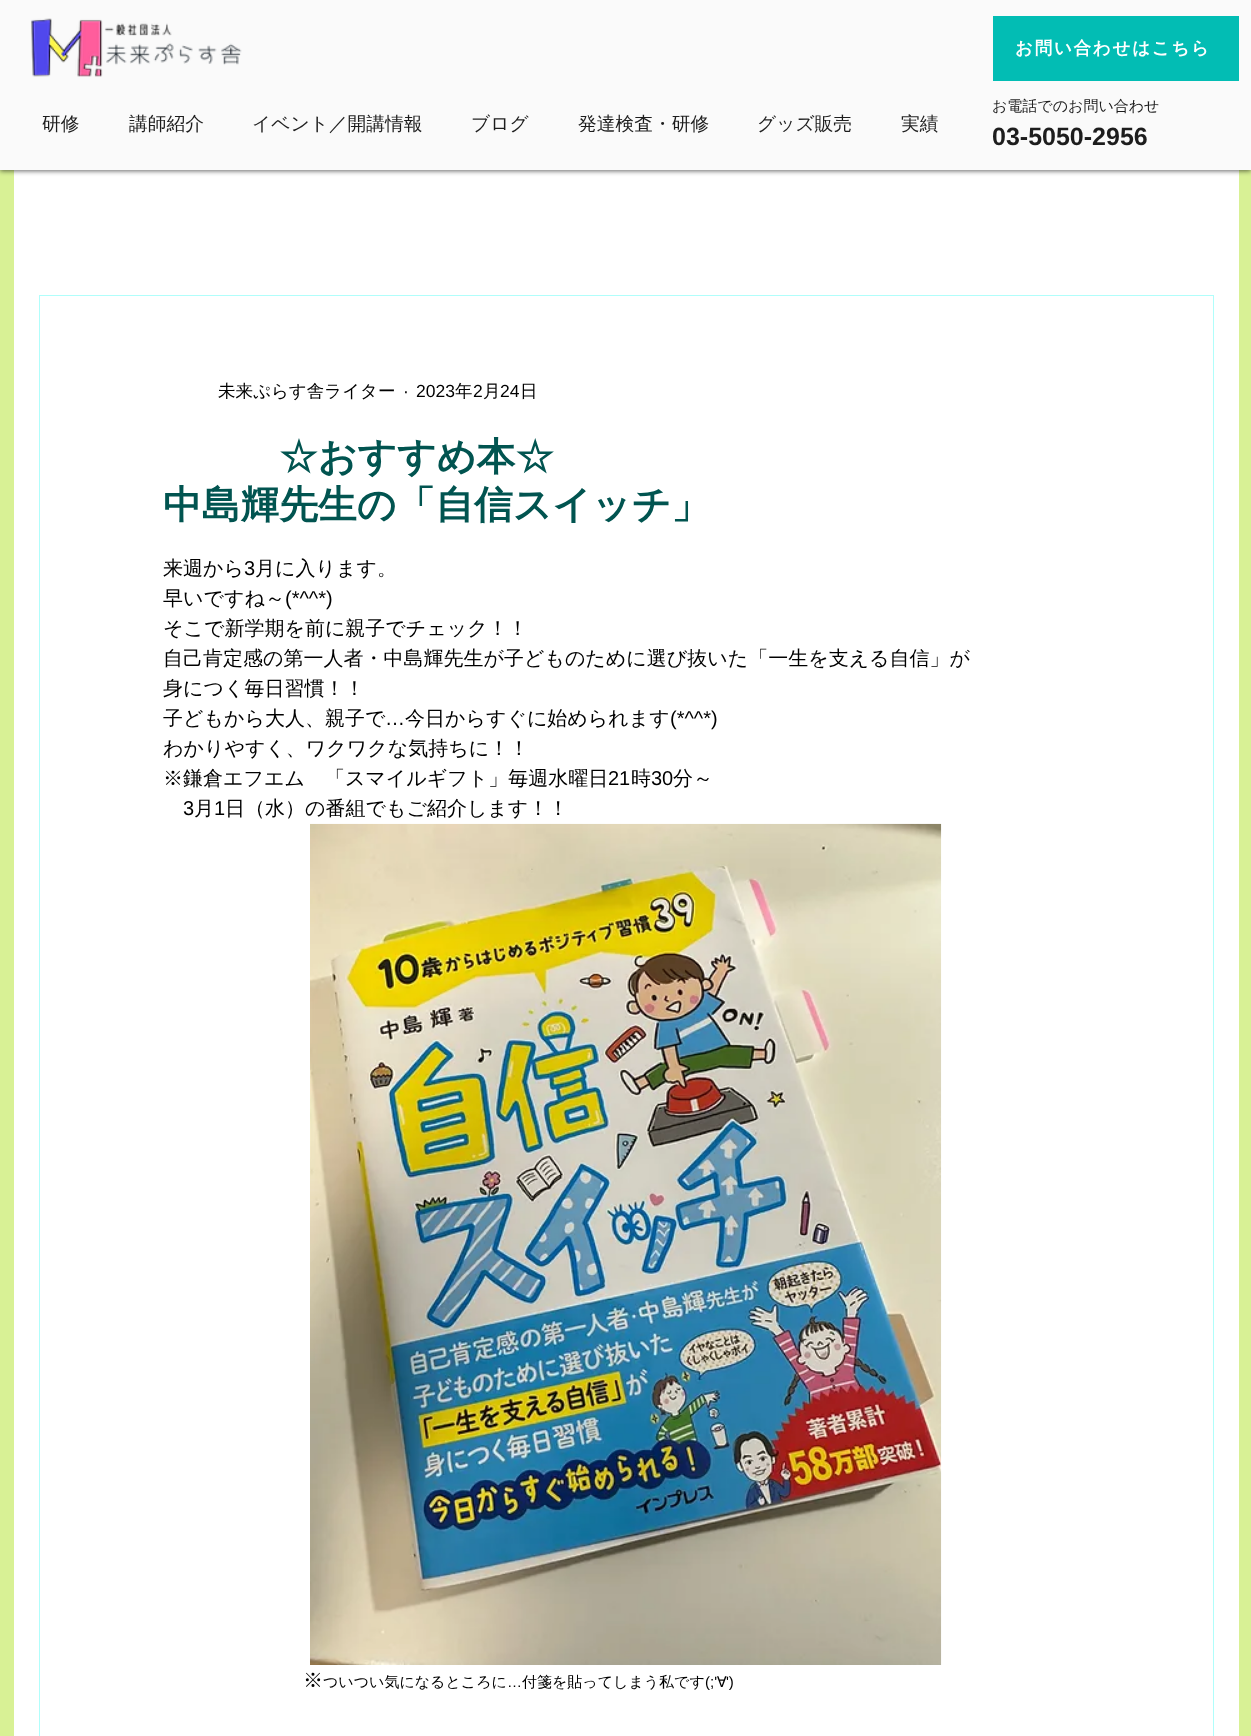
<svg xmlns="http://www.w3.org/2000/svg" width="1251" height="1736">
	<rect width="100%" height="100%" fill="#D8F195" />
	<rect x="14" y="170" width="1225" height="1566" fill="#FFFFFF" />
	<rect x="0" y="1" width="1251" height="170" fill="#000000" fill-opacity="0.6" filter="blur(2.5px)" />
	<rect x="0" y="0" width="1251" height="170" fill="#FAFAFA" />
	<image x="31" y="18" width="211" height="59" href="assets/img1.png" />
	<rect x="993" y="16" width="246" height="65" fill="#02BDB4" />
	<text x="1015" y="54" font-family="WenQuanYi Zen Hei" font-size="17.5" font-weight="700" letter-spacing="1.75" fill="#FFFFFF">お問い合わせはこちら</text>
	<g font-family="WenQuanYi Zen Hei" font-size="18.75" font-weight="500" fill="#1D1D1D">
		<text x="42" y="130">研修</text>
		<text x="129" y="130">講師紹介</text>
		<text x="252" y="130">イベント／開講情報</text>
		<text x="471" y="130">ブログ</text>
		<text x="578" y="130">発達検査・研修</text>
		<text x="757" y="130">グッズ販売</text>
		<text x="901" y="130">実績</text>
	</g>
	<text x="992" y="111" font-family="WenQuanYi Zen Hei" font-size="15" font-weight="500" fill="#1D1D1D">お電話でのお問い合わせ</text>
	<text x="992" y="145" font-family="Liberation Sans" font-size="25" font-weight="700" fill="#1D1D1D">03-5050-2956</text>
	<rect x="39.5" y="295.5" width="1174" height="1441" fill="none" stroke="#B0FEFB" />
	<text x="218" y="397" font-family="WenQuanYi Zen Hei" font-size="17.5" font-weight="500" fill="#000000">未来ぷらす舎ライター</text>
	<g font-family="Liberation Sans" font-size="17.5" fill="#000000">
		<text x="403" y="397">·</text>
		<text x="416" y="397">2023</text>
	</g>
	<text x="455" y="397" font-family="WenQuanYi Zen Hei" font-size="17.5" font-weight="500" fill="#000000">年</text>
	<text x="473" y="397" font-family="Liberation Sans" font-size="17.5" fill="#000000">2</text>
	<text x="483" y="397" font-family="WenQuanYi Zen Hei" font-size="17.5" font-weight="500" fill="#000000">月</text>
	<text x="500" y="397" font-family="Liberation Sans" font-size="17.5" fill="#000000">24</text>
	<text x="520" y="397" font-family="WenQuanYi Zen Hei" font-size="17.5" font-weight="500" fill="#000000">日</text>
	<g font-family="WenQuanYi Zen Hei" font-size="38.75" font-weight="700" fill="#015450">
		<text x="279" y="470">☆おすすめ本☆</text>
		<text x="163" y="518">中島輝先生の「自信スイッチ」</text>
	</g>
	<text x="163" y="575" font-family="WenQuanYi Zen Hei" font-size="20" font-weight="500" fill="#000000">来週から</text>
	<text x="244" y="575" font-family="Liberation Sans" font-size="20" fill="#000000">3</text>
	<g font-family="WenQuanYi Zen Hei" font-size="20" font-weight="500" fill="#000000">
		<text x="255" y="575">月に入ります。</text>
		<text x="163" y="605">早いですね～</text>
	</g>
	<text x="285" y="605" font-family="Liberation Sans" font-size="20" fill="#000000">(*^^*)</text>
	<g font-family="WenQuanYi Zen Hei" font-size="20" font-weight="500" fill="#000000">
		<text x="163" y="635">そこで新学期を前に親子でチェック！！</text>
		<text x="163" y="665">自己肯定感の第一人者・中島輝先生が子どものために選び抜いた「一生を支える自信」が</text>
		<text x="163" y="695">身につく毎日習慣！！</text>
		<text x="163" y="725">子どもから大人、親子で</text>
	</g>
	<text x="385" y="725" font-family="Liberation Sans" font-size="20" fill="#000000">…</text>
	<text x="405" y="725" font-family="WenQuanYi Zen Hei" font-size="20" font-weight="500" fill="#000000">今日からすぐに始められます</text>
	<text x="670" y="725" font-family="Liberation Sans" font-size="20" fill="#000000">(*^^*)</text>
	<g font-family="WenQuanYi Zen Hei" font-size="20" font-weight="500" fill="#000000">
		<text x="163" y="755">わかりやすく、ワクワクな気持ちに！！</text>
		<text x="163" y="785">※鎌倉エフエム　「スマイルギフト」毎週水曜日</text>
	</g>
	<text x="608" y="785" font-family="Liberation Sans" font-size="20" fill="#000000">21</text>
	<text x="631" y="785" font-family="WenQuanYi Zen Hei" font-size="20" font-weight="500" fill="#000000">時</text>
	<text x="651" y="785" font-family="Liberation Sans" font-size="20" fill="#000000">30</text>
	<text x="673" y="785" font-family="WenQuanYi Zen Hei" font-size="20" font-weight="500" fill="#000000">分～</text>
	<text x="183" y="815" font-family="Liberation Sans" font-size="20" fill="#000000">3</text>
	<text x="194" y="815" font-family="WenQuanYi Zen Hei" font-size="20" font-weight="500" fill="#000000">月</text>
	<text x="214" y="815" font-family="Liberation Sans" font-size="20" fill="#000000">1</text>
	<text x="225" y="815" font-family="WenQuanYi Zen Hei" font-size="20" font-weight="500" fill="#000000">日（水）の番組でもご紹介します！！</text>
	<image x="310" y="823" width="632" height="842" href="assets/img2.png" />
	<text x="303" y="1687" font-family="WenQuanYi Zen Hei" font-size="20" font-weight="500" fill="#000000">※</text>
	<text x="323" y="1687" font-family="WenQuanYi Zen Hei" font-size="15" font-weight="500" fill="#000000">ついつい気になるところに</text>
	<text x="507" y="1687" font-family="Liberation Sans" font-size="15" fill="#000000">…</text>
	<text x="522" y="1687" font-family="WenQuanYi Zen Hei" font-size="15" font-weight="500" fill="#000000">付箋を貼ってしまう私です</text>
	<text x="705" y="1687" font-family="Liberation Sans" font-size="15" fill="#000000">(;'</text>
	<text x="717" y="1687" font-family="WenQuanYi Zen Hei" font-size="15" font-weight="500" fill="#000000">∀</text>
	<text x="726" y="1687" font-family="Liberation Sans" font-size="15" fill="#000000">')</text>
</svg>
